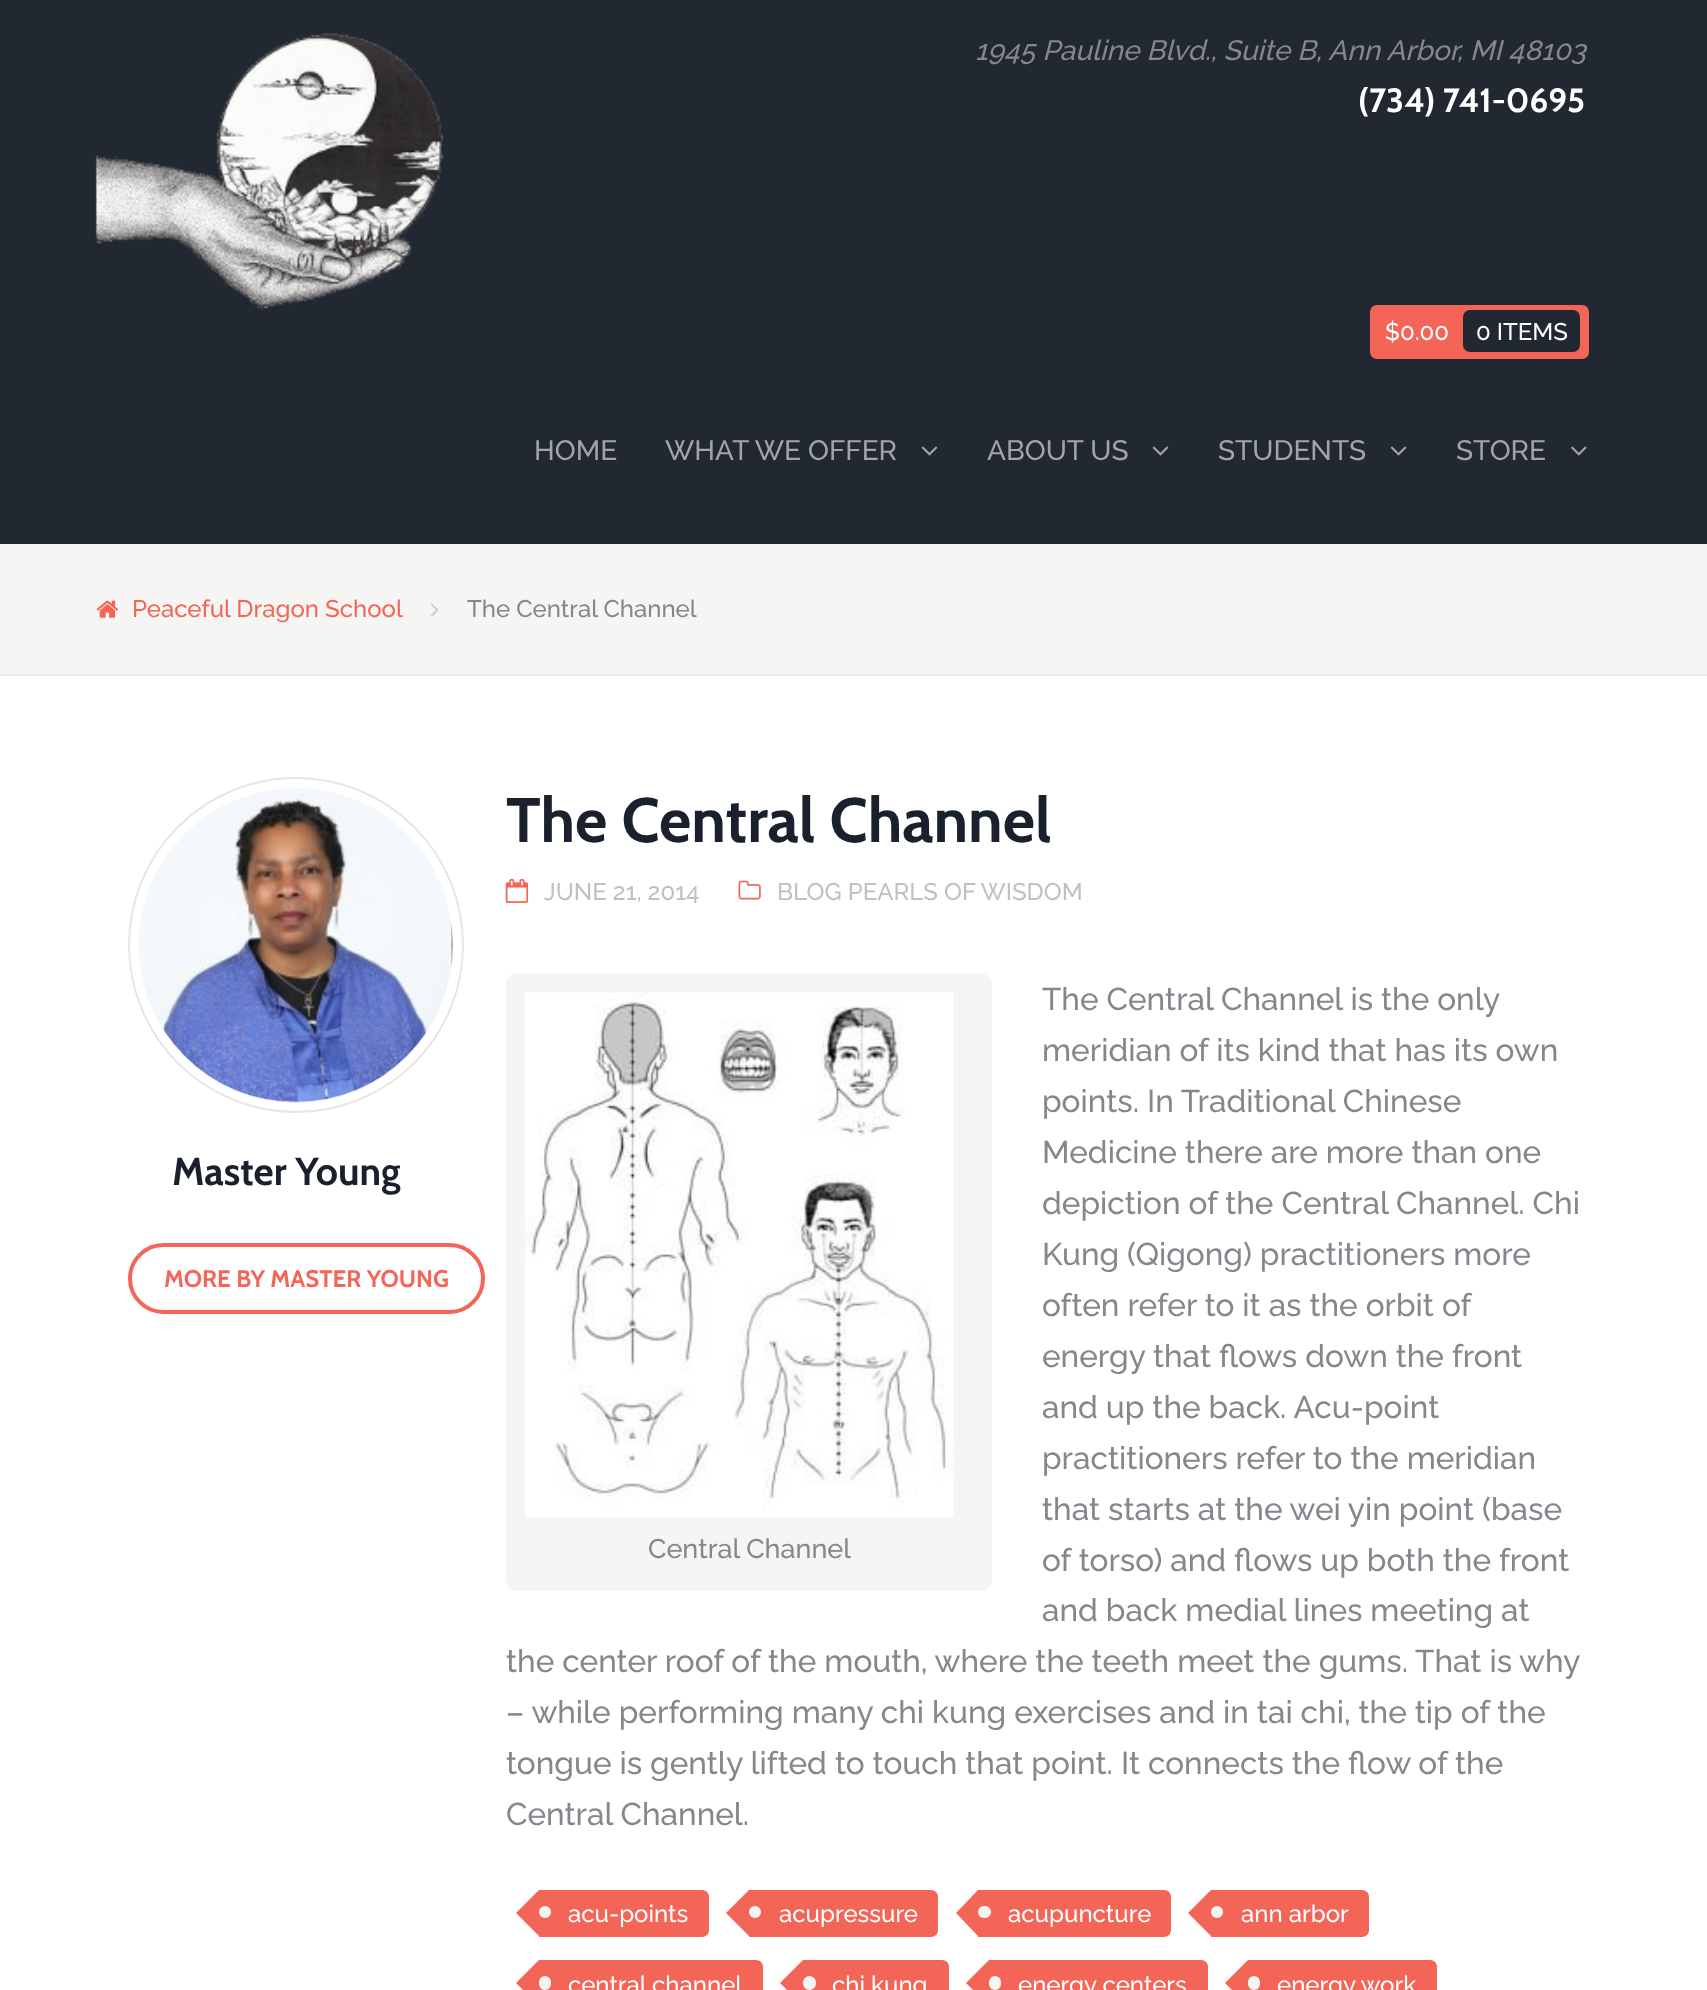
<svg xmlns="http://www.w3.org/2000/svg" width="1707" height="1990">
	<rect width="100%" height="100%" fill="#FFFFFF" />
	<rect x="0" y="0" width="1707" height="544" fill="#222832" />
	<image x="95" y="33" width="349" height="277" href="assets/img1.png" />
	<text x="975" y="60" font-family="Raleway" font-size="28" font-weight="500" font-style="italic" fill="#84878C">1945 Pauline Blvd., Suite B, Ann Arbor, MI 48103</text>
	<text x="1358" y="112" font-family="Cabin" font-size="33.5" font-weight="700" fill="#FFFFFF">(734) 741-0695</text>
	<rect x="1370" y="305" width="219" height="54" rx="7" fill="#F36557" />
	<text x="1385" y="340" font-family="Raleway" font-size="24" font-weight="500" fill="#FFFFFF">$0.00</text>
	<rect x="1463" y="310" width="117" height="42" rx="7" fill="#222832" />
	<text x="1476" y="340" font-family="Raleway" font-size="24" font-weight="500" fill="#FFFFFF">0 ITEMS</text>
	<g font-family="Raleway" font-size="28" font-weight="500" fill="#A1A4A9">
		<text x="534" y="460">HOME</text>
		<text x="665" y="460">WHAT WE OFFER</text>
	</g>
	<image x="921" y="446" width="17" height="10" href="assets/img2.png" />
	<text x="987" y="460" font-family="Raleway" font-size="28" font-weight="500" fill="#A1A4A9">ABOUT US</text>
	<image x="1152" y="446" width="17" height="10" href="assets/img2.png" />
	<text x="1218" y="460" font-family="Raleway" font-size="28" font-weight="500" fill="#A1A4A9">STUDENTS</text>
	<image x="1390" y="446" width="17" height="10" href="assets/img2.png" />
	<text x="1456" y="460" font-family="Raleway" font-size="28" font-weight="500" fill="#A1A4A9">STORE</text>
	<image x="1571" y="446" width="16" height="10" href="assets/img3.png" />
	<rect x="0" y="544" width="1707" height="130" fill="#F5F5F4" />
	<rect x="0" y="674" width="1707" height="2" fill="#EBEBEB" />
	<image x="96" y="600" width="23" height="18" href="assets/img4.png" />
	<text x="132" y="617" font-family="Raleway" font-size="24" font-weight="500" fill="#F36557">Peaceful Dragon School</text>
	<image x="430" y="603" width="9" height="14" href="assets/img5.png" />
	<text x="467" y="617" font-family="Raleway" font-size="24" font-weight="500" fill="#84878C">The Central Channel</text>
	<circle cx="296" cy="945" r="167" fill="none" stroke="#E6E6E6" stroke-width="2" />
	<image x="139" y="788" width="314" height="315" href="assets/img6.png" />
	<text x="172" y="1185" font-family="Cabin" font-size="39" font-weight="700" fill="#1A212C">Master Young</text>
	<rect x="130" y="1245" width="353" height="67" rx="33.5" fill="none" stroke="#F36557" stroke-width="4" />
	<text x="164" y="1287" font-family="Cabin" font-size="24" font-weight="700" fill="#F36557">MORE BY MASTER YOUNG</text>
	<text x="506" y="842" font-family="Cabin" font-size="62.75" font-weight="700" fill="#1A212C">The Central Channel</text>
	<image x="505" y="878" width="24" height="25" href="assets/img7.png" />
	<text x="544" y="900" font-family="Raleway" font-size="24" font-weight="500" fill="#BEC0C2">JUNE 21, 2014</text>
	<image x="738" y="880" width="23" height="20" href="assets/img8.png" />
	<text x="777" y="900" font-family="Raleway" font-size="24" font-weight="500" fill="#BEC0C2">BLOG PEARLS OF WISDOM</text>
	<g font-family="Raleway" font-size="31.5" font-weight="500" fill="#84878C">
		<text x="1042" y="1010">The Central Channel is the only</text>
		<text x="1042" y="1061">meridian of its kind that has its own</text>
		<text x="1042" y="1112">points. In Traditional Chinese</text>
		<text x="1042" y="1163">Medicine there are more than one</text>
		<text x="1042" y="1214">depiction of the Central Channel. Chi</text>
		<text x="1042" y="1265">Kung (Qigong) practitioners more</text>
		<text x="1042" y="1316">often refer to it as the orbit of</text>
		<text x="1042" y="1367">energy that flows down the front</text>
		<text x="1042" y="1418">and up the back. Acu-point</text>
		<text x="1042" y="1469">practitioners refer to the meridian</text>
		<text x="1042" y="1520">that starts at the wei yin point (base</text>
		<text x="1042" y="1571">of torso) and flows up both the front</text>
		<text x="1042" y="1621">and back medial lines meeting at</text>
		<text x="506" y="1672">the center roof of the mouth, where the teeth meet the gums. That is why</text>
		<text x="506" y="1723">– while performing many chi kung exercises and in tai chi, the tip of the</text>
		<text x="506" y="1774">tongue is gently lifted to touch that point. It connects the flow of the</text>
		<text x="506" y="1825">Central Channel.</text>
	</g>
	<rect x="506" y="973" width="486" height="618" rx="11" fill="#F5F5F4" />
	<image x="525" y="992" width="429" height="526" href="assets/img9.png" />
	<text x="648" y="1558" font-family="Raleway" font-size="27" font-weight="500" fill="#84878C">Central Channel</text>
	<path d="M539 1890H702C706 1890 709 1893 709 1897V1930C709 1934 706 1937 702 1937H539Z" fill="#F36557" />
	<path d="M539 1890V1936L516 1913Z" fill="#F36557" />
	<circle cx="545" cy="1912" r="6" fill="#F5F5F4" />
	<text x="568" y="1922" font-family="Raleway" font-size="24" font-weight="500" fill="#FFFFFF">acu-points</text>
	<path d="M749 1890H931C935 1890 938 1893 938 1897V1930C938 1934 935 1937 931 1937H749Z" fill="#F36557" />
	<path d="M749 1890V1936L726 1913Z" fill="#F36557" />
	<circle cx="755" cy="1912" r="6" fill="#F5F5F4" />
	<text x="779" y="1922" font-family="Raleway" font-size="24" font-weight="500" fill="#FFFFFF">acupressure</text>
	<path d="M978 1890H1164C1168 1890 1171 1893 1171 1897V1930C1171 1934 1168 1937 1164 1937H978Z" fill="#F36557" />
	<path d="M978 1890V1936L956 1913Z" fill="#F36557" />
	<rect x="978" y="1906" width="13" height="12" rx="6" fill="#F5F5F4" />
	<text x="1008" y="1922" font-family="Raleway" font-size="24" font-weight="500" fill="#FFFFFF">acupuncture</text>
	<path d="M1211 1890H1362C1366 1890 1369 1893 1369 1897V1930C1369 1934 1366 1937 1362 1937H1211Z" fill="#F36557" />
	<path d="M1211 1890V1936L1188 1913Z" fill="#F36557" />
	<circle cx="1217" cy="1912" r="6" fill="#F5F5F4" />
	<text x="1241" y="1922" font-family="Raleway" font-size="24" font-weight="500" fill="#FFFFFF">ann arbor</text>
	<path d="M539 1960H756C760 1960 763 1963 763 1967V1990C763 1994 760 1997 756 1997H539Z" fill="#F36557" />
	<path d="M539 1960V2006L516 1983Z" fill="#F36557" />
	<rect x="539" y="1976" width="12" height="14" rx="6" fill="#F5F5F4" />
	<text x="568" y="1993" font-family="Raleway" font-size="24" font-weight="500" fill="#FFFFFF">central channel</text>
	<path d="M803 1960H942C946 1960 949 1963 949 1967V1990C949 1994 946 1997 942 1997H803Z" fill="#F36557" />
	<path d="M803 1960V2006L780 1983Z" fill="#F36557" />
	<rect x="803" y="1976" width="13" height="14" rx="6.5" fill="#F5F5F4" />
	<text x="832" y="1993" font-family="Raleway" font-size="24" font-weight="500" fill="#FFFFFF">chi kung</text>
	<path d="M989 1960H1201C1205 1960 1208 1963 1208 1967V1990C1208 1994 1205 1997 1201 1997H989Z" fill="#F36557" />
	<path d="M989 1960V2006L966 1983Z" fill="#F36557" />
	<rect x="989" y="1976" width="12" height="14" rx="6" fill="#F5F5F4" />
	<text x="1018" y="1993" font-family="Raleway" font-size="24" font-weight="500" fill="#FFFFFF">energy centers</text>
	<path d="M1248 1960H1430C1434 1960 1437 1963 1437 1967V1990C1437 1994 1434 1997 1430 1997H1248Z" fill="#F36557" />
	<path d="M1248 1960V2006L1225 1983Z" fill="#F36557" />
	<rect x="1248" y="1976" width="12" height="14" rx="6" fill="#F5F5F4" />
	<text x="1277" y="1993" font-family="Raleway" font-size="24" font-weight="500" fill="#FFFFFF">energy work</text>
</svg>
